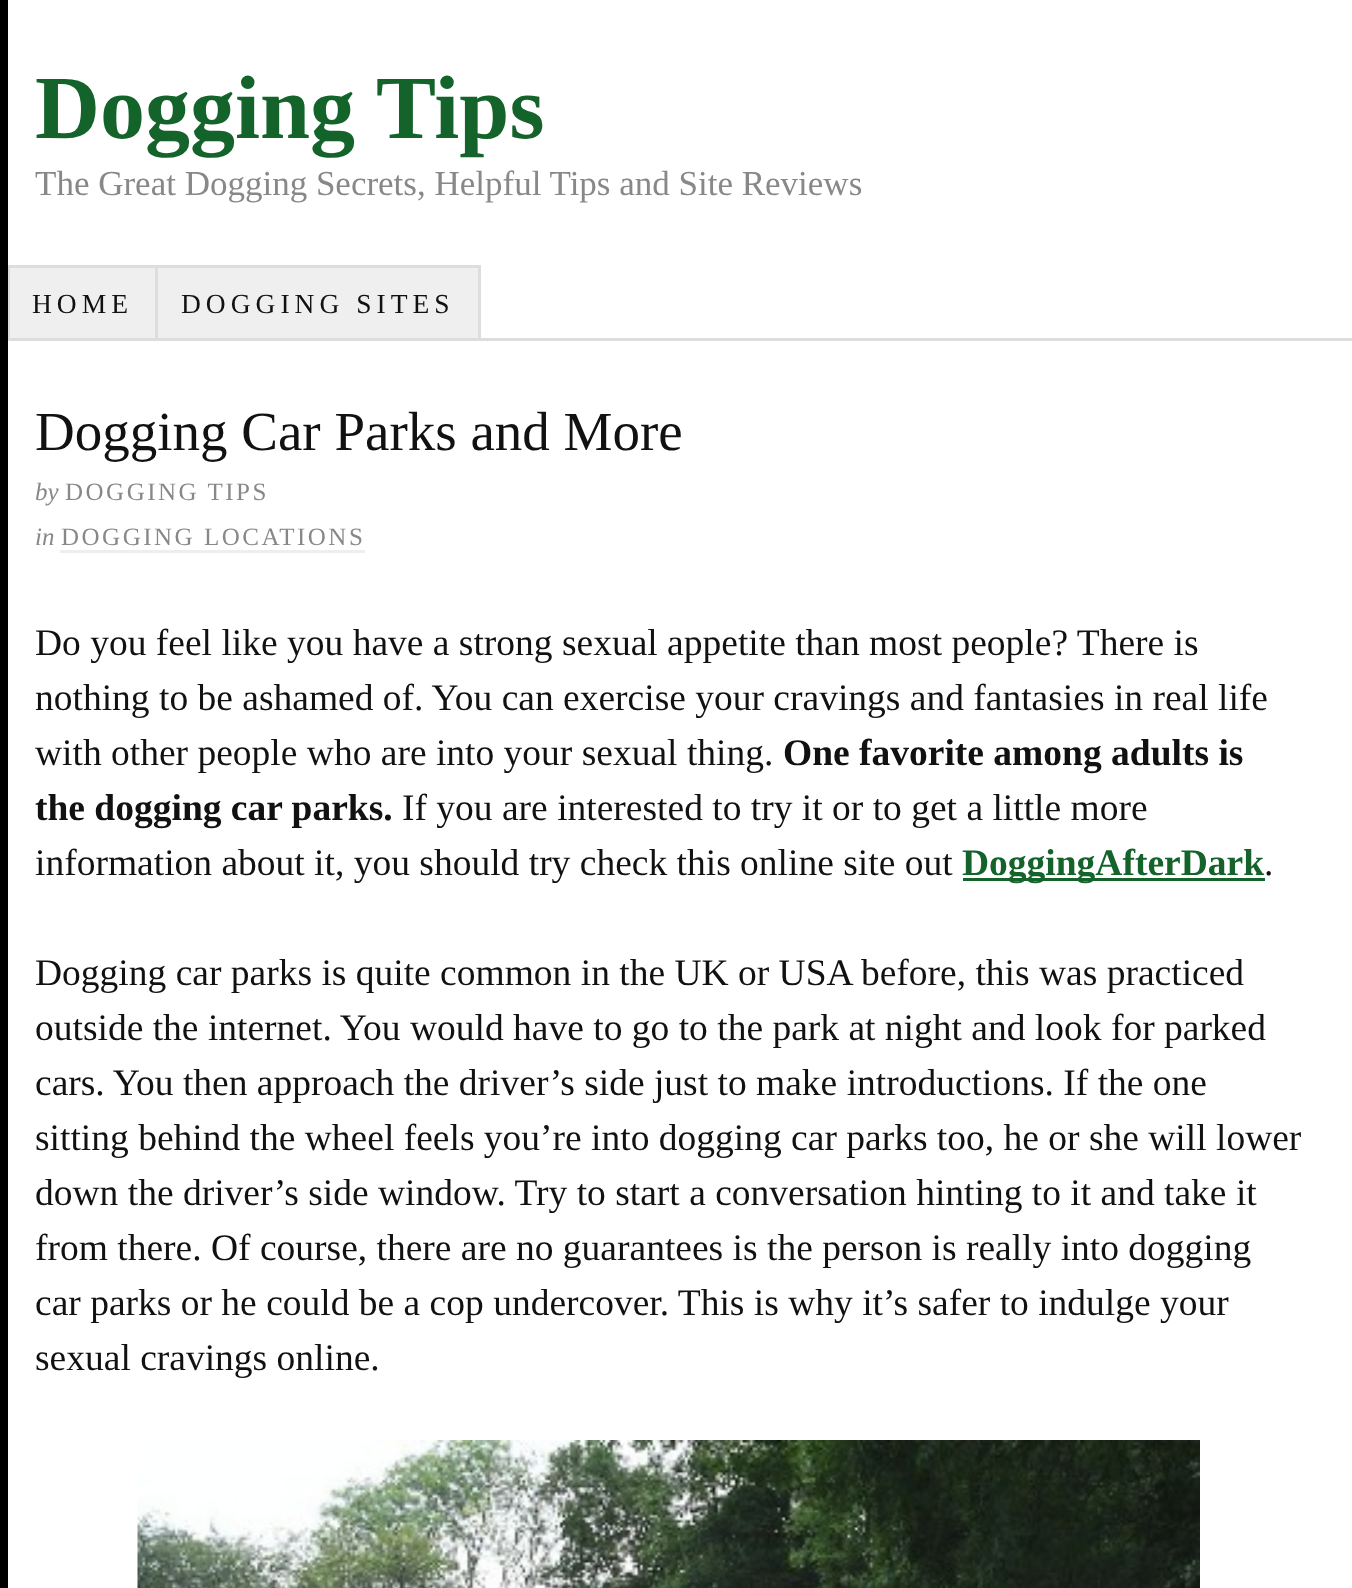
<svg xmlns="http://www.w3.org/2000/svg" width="1352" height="1588">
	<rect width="100%" height="100%" fill="#000000" />
	<rect x="8" y="0" width="1344" height="1588" fill="#FFFFFF" />
	<text x="35" y="138" font-family="Liberation Serif" font-size="90" font-weight="700" fill="#13632A">Dogging Tips</text>
	<text x="35" y="195" font-family="Liberation Serif" font-size="35" fill="#888888">The Great Dogging Secrets, Helpful Tips and Site Reviews</text>
	<rect x="8" y="338" width="1344" height="3" fill="#DDDDDD" />
	<rect x="8" y="265" width="3" height="75" fill="#DDDDDD" />
	<rect x="10" y="268" width="145" height="70" fill="#EFEFEF" />
	<rect x="10" y="265" width="470" height="3" fill="#DDDDDD" />
	<rect x="155" y="265" width="3" height="75" fill="#DDDDDD" />
	<text x="32" y="313" font-family="Liberation Serif" font-size="27.5" letter-spacing="5" fill="#111111">HOME</text>
	<rect x="158" y="268" width="320" height="70" fill="#EFEFEF" />
	<rect x="478" y="265" width="3" height="75" fill="#DDDDDD" />
	<text x="181" y="313" font-family="Liberation Serif" font-size="27.5" letter-spacing="5" fill="#111111">DOGGING SITES</text>
	<text x="35" y="450" font-family="Liberation Serif" font-size="55" fill="#111111">Dogging Car Parks and More</text>
	<text x="35" y="500" font-family="Liberation Serif" font-size="25" font-style="italic" fill="#888888">by</text>
	<text x="65" y="500" font-family="Liberation Serif" font-size="25" letter-spacing="2.5" fill="#888888">DOGGING TIPS</text>
	<text x="35" y="545" font-family="Liberation Serif" font-size="25" font-style="italic" fill="#888888">in</text>
	<text x="61" y="545" font-family="Liberation Serif" font-size="25" letter-spacing="2.5" fill="#888888">DOGGING LOCATIONS</text>
	<rect x="60" y="550" width="305" height="3" fill="#EEEEEE" />
	<g font-family="Liberation Serif" font-size="37.5" fill="#111111">
		<text x="35" y="655">Do you feel like you have a strong sexual appetite than most people? There is</text>
		<text x="35" y="710">nothing to be ashamed of. You can exercise your cravings and fantasies in real life</text>
		<text x="35" y="765">with other people who are into your sexual thing.</text>
	</g>
	<g font-family="Liberation Serif" font-size="37.5" font-weight="700" fill="#111111">
		<text x="783" y="765">One favorite among adults is</text>
		<text x="35" y="820">the dogging car parks.</text>
	</g>
	<g font-family="Liberation Serif" font-size="37.5" fill="#111111">
		<text x="402" y="820">If you are interested to try it or to get a little more</text>
		<text x="35" y="875">information about it, you should try check this online site out</text>
	</g>
	<rect x="963" y="878" width="302" height="3" fill="#13632A" />
	<text x="962" y="875" font-family="Liberation Serif" font-size="37.5" font-weight="700" fill="#13632A">DoggingAfterDark</text>
	<g font-family="Liberation Serif" font-size="37.5" fill="#111111">
		<text x="1264" y="875">.</text>
		<text x="35" y="985">Dogging car parks is quite common in the UK or USA before, this was practiced</text>
		<text x="35" y="1040">outside the internet. You would have to go to the park at night and look for parked</text>
		<text x="35" y="1095">cars. You then approach the driver’s side just to make introductions. If the one</text>
		<text x="35" y="1150">sitting behind the wheel feels you’re into dogging car parks too, he or she will lower</text>
		<text x="35" y="1205">down the driver’s side window. Try to start a conversation hinting to it and take it</text>
		<text x="35" y="1260">from there. Of course, there are no guarantees is the person is really into dogging</text>
		<text x="35" y="1315">car parks or he could be a cop undercover. This is why it’s safer to indulge your</text>
		<text x="35" y="1370">sexual cravings online.</text>
	</g>
	<image x="137" y="1440" width="1063" height="148" href="assets/img1.png" />
</svg>
